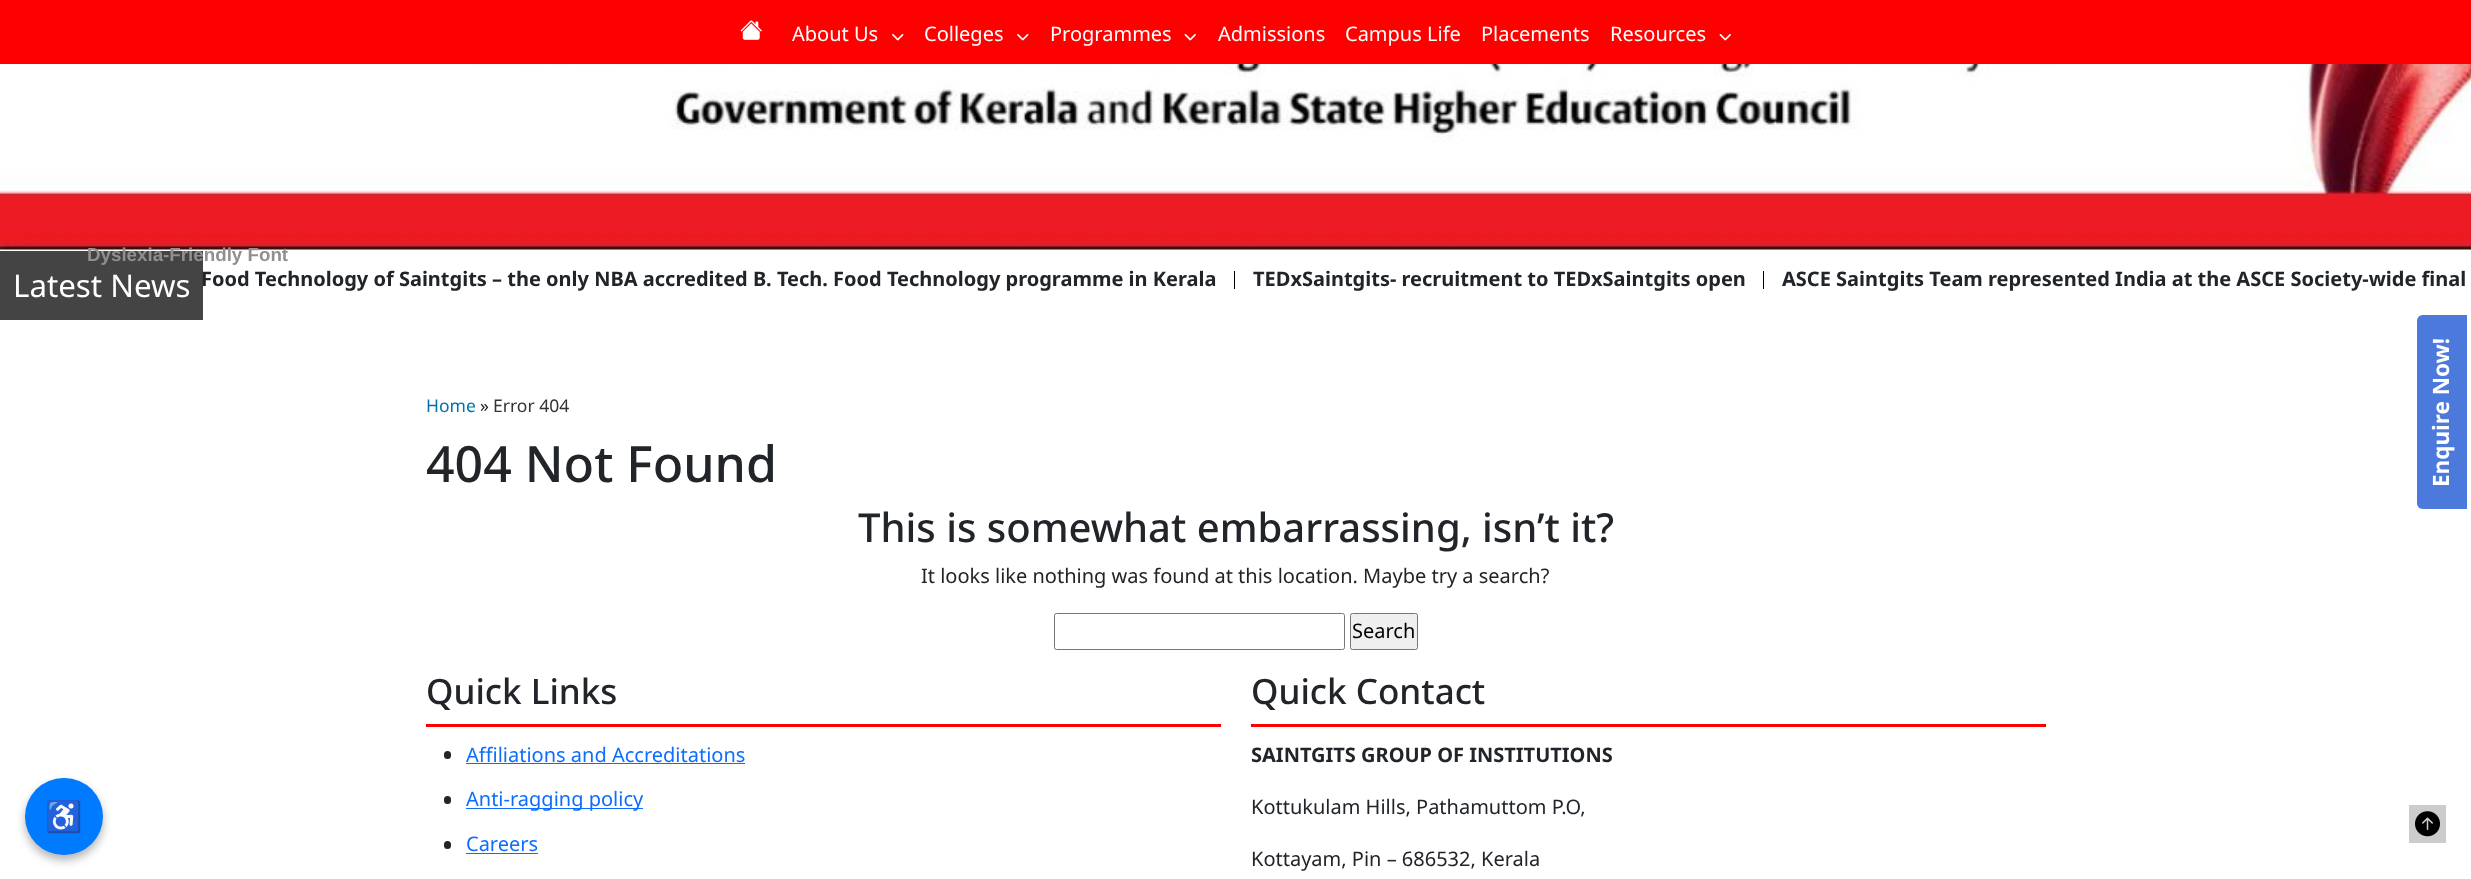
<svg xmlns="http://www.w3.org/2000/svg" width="2471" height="879">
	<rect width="100%" height="100%" fill="#FFFFFF" />
	<rect x="0" y="0" width="2471" height="64" fill="#FF0000" />
	<image x="740" y="20" width="22" height="20" href="assets/img1.png" />
	<text x="792" y="41" font-family="Noto Sans" font-size="20" fill="#FFFFFF">About Us</text>
	<image x="892" y="34" width="12" height="7" href="assets/img2.png" />
	<text x="924" y="41" font-family="Noto Sans" font-size="20" fill="#FFFFFF">Colleges</text>
	<image x="1017" y="34" width="12" height="7" href="assets/img2.png" />
	<text x="1050" y="41" font-family="Noto Sans" font-size="20" fill="#FFFFFF">Programmes</text>
	<image x="1184" y="34" width="12" height="7" href="assets/img3.png" />
	<g font-family="Noto Sans" font-size="20" fill="#FFFFFF">
		<text x="1218" y="41">Admissions</text>
		<text x="1345" y="41">Campus Life</text>
		<text x="1481" y="41">Placements</text>
		<text x="1610" y="41">Resources</text>
	</g>
	<image x="1719" y="34" width="12" height="7" href="assets/img3.png" />
	<image x="0" y="64" width="2471" height="186" href="assets/img4.png" />
	<rect x="0" y="251" width="203" height="69" fill="#444444" />
	<text x="87" y="261" font-family="Liberation Sans" font-size="18.75" font-weight="700" fill="#928F8E">Dyslexia-Friendly Font</text>
	<text x="13" y="297" font-family="Noto Sans" font-size="31.25" fill="#FFFFFF">Latest News</text>
	<text x="201" y="286" font-family="Noto Sans" font-size="20" font-weight="700" fill="#212529">Food Technology of Saintgits – the only NBA accredited B. Tech. Food Technology programme in Kerala</text>
	<rect x="1234" y="271" width="1" height="18" fill="#000000" />
	<text x="1253" y="286" font-family="Noto Sans" font-size="20" font-weight="700" fill="#212529">TEDxSaintgits- recruitment to TEDxSaintgits open</text>
	<rect x="1763" y="271" width="1" height="18" fill="#000000" />
	<text x="1782" y="286" font-family="Noto Sans" font-size="20" font-weight="700" fill="#212529">ASCE Saintgits Team represented India at the ASCE Society-wide final</text>
	<text x="426" y="412" font-family="Noto Sans" font-size="17.5" fill="#0073AA">Home</text>
	<text x="480" y="412" font-family="Noto Sans" font-size="17.5" fill="#212529">»</text>
	<text x="493" y="412" font-family="Noto Sans" font-size="17.5" fill="#333333">Error 404</text>
	<text x="426" y="482" font-family="Noto Sans" font-size="50" font-weight="500" fill="#212529">404 Not Found</text>
	<text x="858" y="542" font-family="Noto Sans" font-size="40" font-weight="500" fill="#212529">This is somewhat embarrassing, isn’t it?</text>
	<text x="921" y="583" font-family="Noto Sans" font-size="20" fill="#212529">It looks like nothing was found at this location. Maybe try a search?</text>
	<rect x="1054.5" y="613.5" width="290" height="36" rx="2" fill="none" stroke="#767676" />
	<rect x="1350.5" y="613.5" width="67" height="36" rx="2" fill="#EFEFEF" stroke="#767676" />
	<text x="1352" y="638" font-family="Noto Sans" font-size="20" fill="#000000">Search</text>
	<path d="M2417 503V321C2417 318 2419 315 2423 315H2467V509H2423C2419 509 2417 506 2417 503Z" fill="#4C79DC" />
	<text x="2449" y="487" transform="rotate(-90 2449 487)" font-family="Noto Sans" font-size="22.5" font-weight="700" fill="#FFFFFF">Enquire Now!</text>
	<rect x="25" y="783" width="78" height="77" rx="38.5" fill="#000000" fill-opacity="0.3" filter="blur(5px)" />
	<rect x="25" y="778" width="78" height="77" rx="38.5" fill="#007BFF" />
	<text x="45" y="827" font-family="Noto Color Emoji" font-size="30" fill="#FFFFFF">♿</text>
	<rect x="426" y="724" width="795" height="3" fill="#FF0000" />
	<text x="426" y="704" font-family="Noto Sans" font-size="35" font-weight="500" fill="#212529">Quick Links</text>
	<rect x="444" y="751" width="7" height="8" rx="3.5" fill="#212529" />
	<text x="466" y="762" font-family="Noto Sans" font-size="20" fill="#0D6EFD">Affiliations and Accreditations</text>
	<rect x="466" y="763" width="279" height="1" fill="#0D6EFD" />
	<rect x="444" y="796" width="7" height="8" rx="3.5" fill="#212529" />
	<rect x="466" y="808" width="177" height="1" fill="#0D6EFD" />
	<text x="466" y="806" font-family="Noto Sans" font-size="20" fill="#0D6EFD">Anti-ragging policy</text>
	<rect x="444" y="841" width="7" height="8" rx="3.5" fill="#212529" />
	<text x="466" y="851" font-family="Noto Sans" font-size="20" fill="#0D6EFD">Careers</text>
	<rect x="466" y="853" width="72" height="1" fill="#0D6EFD" />
	<rect x="1251" y="724" width="795" height="3" fill="#FF0000" />
	<text x="1251" y="704" font-family="Noto Sans" font-size="35" font-weight="500" fill="#212529">Quick Contact</text>
	<text x="1251" y="762" font-family="Noto Sans" font-size="20" font-weight="700" fill="#212529">SAINTGITS GROUP OF INSTITUTIONS</text>
	<g font-family="Noto Sans" font-size="20" fill="#212529">
		<text x="1251" y="814">Kottukulam Hills, Pathamuttom P.O,</text>
		<text x="1251" y="866">Kottayam, Pin – 686532, Kerala</text>
	</g>
	<rect x="2409" y="805" width="37" height="38" fill="#CCCCCC" />
	<image x="2415" y="811" width="25" height="26" href="assets/img5.png" />
</svg>
